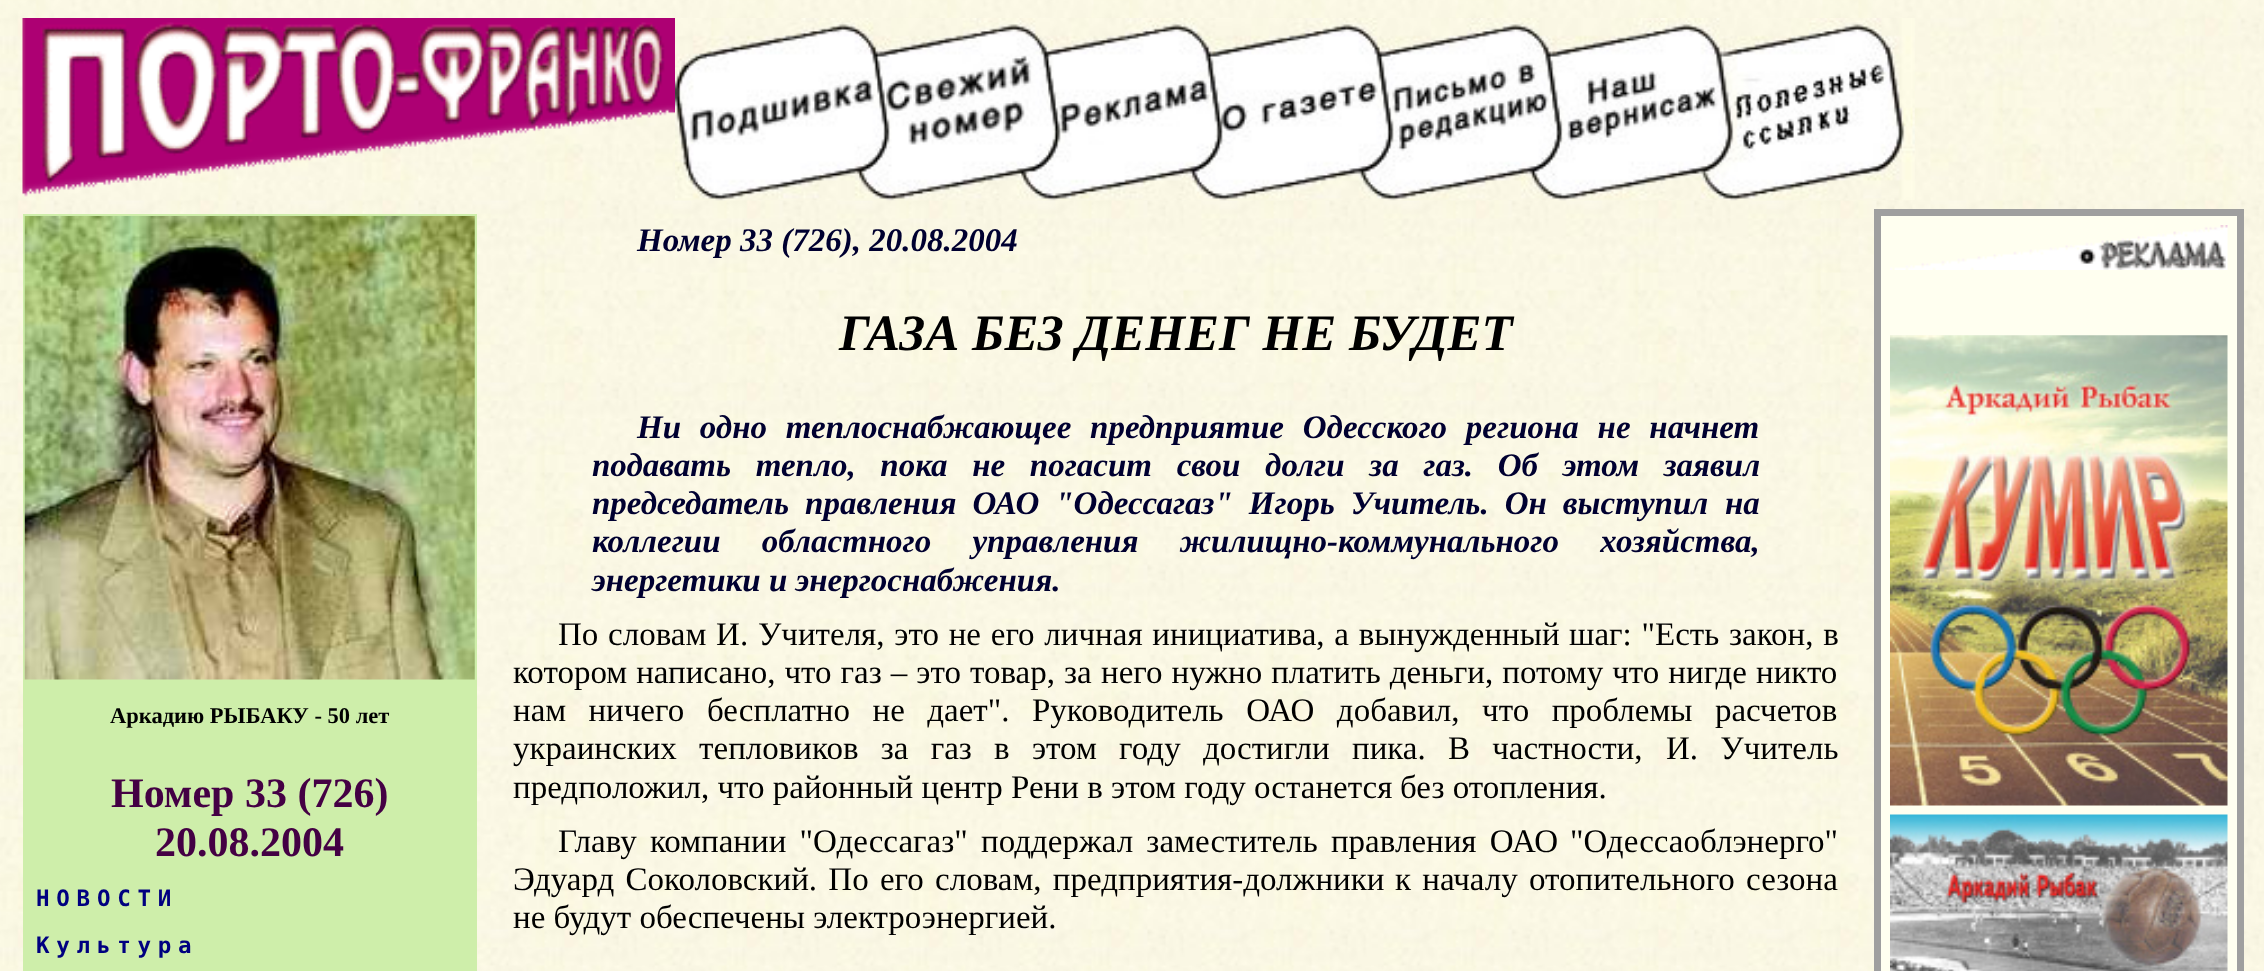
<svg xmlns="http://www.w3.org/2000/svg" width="2264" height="971">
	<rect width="100%" height="100%" fill="#FFFFFF" />
	<image x="0" y="0" width="2264" height="971" href="assets/img1.png" />
	<image x="22" y="18" width="653" height="179" href="assets/img2.png" />
	<image x="675" y="18" width="1240" height="183" href="assets/img3.png" />
	<rect x="23" y="214" width="454" height="757" fill="#CEEEAA" />
	<image x="24" y="216" width="451" height="464" href="assets/img4.png" />
	<text x="110" y="723" font-family="Liberation Serif" font-size="22.5" font-weight="700" fill="#000000">Аркадию РЫБАКУ - 50 лет</text>
	<g font-family="Liberation Serif" font-size="42" font-weight="700" fill="#440044">
		<text x="111" y="807">Номер 33 (726)</text>
		<text x="155" y="856">20.08.2004</text>
	</g>
	<g font-family="DejaVu Sans Mono" font-size="22.5" font-weight="700" letter-spacing="6.75" fill="#000080">
		<text x="36" y="906">НОВОСТИ</text>
		<text x="36" y="953">Культура</text>
	</g>
	<text x="637" y="251" font-family="Liberation Serif" font-size="33" font-weight="700" font-style="italic" fill="#000030">Номер 33 (726), 20.08.2004</text>
	<text x="839" y="350" font-family="Liberation Serif" font-size="51" font-weight="700" font-style="italic" fill="#000000">ГАЗА БЕЗ ДЕНЕГ НЕ БУДЕТ</text>
	<g font-family="Liberation Serif" font-size="33" font-weight="700" font-style="italic" fill="#000030">
		<text x="637" y="438" word-spacing="10.5">Ни одно теплоснабжающее предприятие Одесского региона не начнет</text>
		<text x="592" y="476" word-spacing="16.4">подавать тепло, пока не погасит свои долги за газ. Об этом заявил</text>
		<text x="592" y="514" word-spacing="7.75">председатель правления ОАО "Одессагаз" Игорь Учитель. Он выступил</text>
		<text x="1725" y="514">на</text>
		<text x="592" y="552" word-spacing="33">коллегии областного управления жилищно-коммунального хозяйства,</text>
		<text x="592" y="591">энергетики и энергоснабжения.</text>
	</g>
	<g font-family="Liberation Serif" font-size="33" fill="#000000">
		<text x="558" y="645" word-spacing="1.5">По словам И. Учителя, это не его личная инициатива, а вынужденный</text>
		<text x="1569" y="645" word-spacing="1.5">шаг: "Есть закон, в</text>
		<text x="513" y="683" word-spacing="0.75">котором написано, что газ – это товар, за</text>
		<text x="1101" y="683" word-spacing="0.75">него нужно платить деньги, потому что нигде никто</text>
		<text x="513" y="721" word-spacing="14">нам ничего</text>
		<text x="707" y="721" word-spacing="14.25">бесплатно не дает". Руководитель ОАО добавил, что проблемы расчетов</text>
		<text x="513" y="759" word-spacing="14">украинских тепловиков за газ в этом году достигли пика. В частности,</text>
		<text x="1666" y="759" word-spacing="14">И. Учитель</text>
		<text x="513" y="798">предположил, что районный центр Рени в этом году останется</text>
		<text x="1400" y="798">без отопления.</text>
		<text x="558" y="852" word-spacing="5">Главу компании "Одессагаз" поддержал заместитель правления ОАО</text>
		<text x="1570" y="852">"Одессаоблэнерго"</text>
		<text x="513" y="890" word-spacing="3">Эдуард Соколовский. По его словам, предприятия-должники</text>
		<text x="1395" y="890" word-spacing="3">к началу отопительного сезона</text>
		<text x="513" y="928">не будут обеспечены электроэнергией.</text>
	</g>
	<rect x="1881" y="216" width="356" height="755" fill="#FFFFF0" />
	<rect x="1874" y="209" width="369" height="7" fill="#9F9F9F" />
	<rect x="2237" y="209" width="7" height="762" fill="#9F9F9F" />
	<rect x="1874" y="209" width="7" height="762" fill="#9F9F9F" />
	<image x="1890" y="225" width="338" height="45" href="assets/img5.png" />
	<image x="1890" y="335" width="338" height="471" href="assets/img6.png" />
	<image x="1890" y="814" width="338" height="157" href="assets/img7.png" />
</svg>
